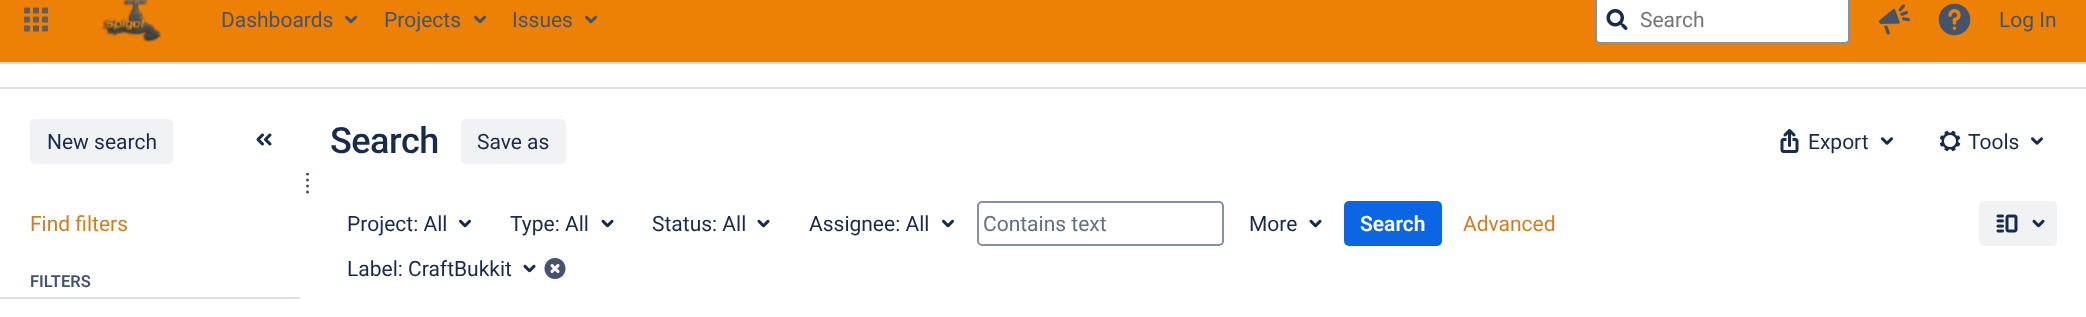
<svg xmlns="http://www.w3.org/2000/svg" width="2086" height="317">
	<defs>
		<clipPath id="clip1"><rect x="306" y="173" width="3" height="21" /></clipPath>
	</defs>
	<rect width="100%" height="100%" fill="#FFFFFF" />
	<rect x="0" y="0" width="2086" height="62" fill="#ED8106" />
	<rect x="0" y="62" width="2086" height="2" fill="#D8DCE2" />
	<image x="24" y="7" width="24" height="25" href="assets/img1.png" />
	<image x="102" y="0" width="59" height="42" href="assets/img2.png" />
	<text x="221" y="27" font-family="Roboto" font-size="21" fill="#44546F">Dashboards</text>
	<image x="345" y="15" width="12" height="9" href="assets/img3.png" />
	<text x="384" y="27" font-family="Roboto" font-size="21" fill="#44546F">Projects</text>
	<image x="474" y="15" width="12" height="9" href="assets/img3.png" />
	<text x="512" y="27" font-family="Roboto" font-size="21" fill="#44546F">Issues</text>
	<image x="585" y="15" width="12" height="9" href="assets/img3.png" />
	<rect x="1596" y="-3" width="253" height="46" rx="4" fill="#FFFFFF" stroke="#8590A2" stroke-width="2" />
	<image x="1606" y="9" width="22" height="21" href="assets/img4.png" />
	<text x="1640" y="27" font-family="Roboto" font-size="21" fill="#757575">Search</text>
	<image x="1879" y="4" width="31" height="31" href="assets/img5.png" />
	<image x="1938" y="3" width="33" height="33" href="assets/img6.png" />
	<text x="1999" y="27" font-family="Roboto" font-size="21" fill="#44546F">Log In</text>
	<rect x="0" y="87" width="2086" height="2" fill="#DDE0E5" />
	<rect x="0" y="297" width="300" height="2" fill="#DDE0E5" />
	<rect x="30" y="119" width="143" height="45" rx="5" fill="#F0F2F4" />
	<text x="47" y="149" font-family="Roboto" font-size="21" fill="#172B4D">New search</text>
	<image x="256" y="133" width="16" height="13" href="assets/img7.png" />
	<text x="30" y="231" font-family="Roboto" font-size="21" fill="#D17E20">Find filters</text>
	<text x="30" y="287" font-family="Roboto" font-size="16.5" font-weight="600" fill="#44546F">FILTERS</text>
	<g clip-path="url(#clip1)">
		<circle cx="307.5" cy="174" r="1.5" fill="#42526E" />
	</g>
	<circle cx="307.5" cy="180" r="1.5" fill="#42526E" />
	<circle cx="307.5" cy="186" r="1.5" fill="#42526E" />
	<circle cx="307.5" cy="192" r="1.5" fill="#42526E" />
	<text x="330" y="153" font-family="Roboto" font-size="36" font-weight="500" letter-spacing="-0.5" fill="#172B4D">Search</text>
	<rect x="461" y="119" width="105" height="45" rx="5" fill="#F0F2F4" />
	<text x="477" y="149" font-family="Roboto" font-size="21" fill="#172B4D">Save as</text>
	<image x="1780" y="129" width="19" height="24" href="assets/img8.png" />
	<text x="1808" y="149" font-family="Roboto" font-size="21" fill="#172B4D">Export</text>
	<image x="1881" y="137" width="12" height="8" href="assets/img9.png" />
	<image x="1939" y="130" width="22" height="22" href="assets/img10.png" />
	<text x="1968" y="149" font-family="Roboto" font-size="21" fill="#172B4D">Tools</text>
	<image x="2031" y="137" width="12" height="8" href="assets/img9.png" />
	<text x="347" y="231" font-family="Roboto" font-size="21" fill="#172B4D">Project: All</text>
	<image x="459" y="219" width="12" height="9" href="assets/img11.png" />
	<text x="510" y="231" font-family="Roboto" font-size="21" fill="#172B4D">Type: All</text>
	<image x="601" y="219" width="13" height="9" href="assets/img12.png" />
	<text x="652" y="231" font-family="Roboto" font-size="21" fill="#172B4D">Status: All</text>
	<image x="757" y="219" width="13" height="9" href="assets/img12.png" />
	<text x="809" y="231" font-family="Roboto" font-size="21" fill="#172B4D">Assignee: All</text>
	<image x="942" y="219" width="12" height="9" href="assets/img11.png" />
	<rect x="978" y="202" width="245" height="43" rx="4" fill="none" stroke="#8590A2" stroke-width="2" />
	<text x="983" y="231" font-family="Roboto" font-size="21" fill="#626F86">Contains text</text>
	<text x="1249" y="231" font-family="Roboto" font-size="21" fill="#172B4D">More</text>
	<image x="1309" y="219" width="13" height="9" href="assets/img12.png" />
	<rect x="1344" y="201" width="98" height="45" rx="5" fill="#0C66E4" />
	<text x="1360" y="231" font-family="Roboto" font-size="21" font-weight="600" fill="#FFFFFF">Search</text>
	<text x="347" y="276" font-family="Roboto" font-size="21" fill="#172B4D">Label: CraftBukkit</text>
	<image x="523" y="264" width="13" height="9" href="assets/img12.png" />
	<image x="544" y="258" width="22" height="21" href="assets/img13.png" />
	<text x="1463" y="231" font-family="Roboto" font-size="21" fill="#D17E20">Advanced</text>
	<rect x="1979" y="201" width="78" height="45" rx="5" fill="#F0F2F4" />
	<image x="1996" y="214" width="22" height="19" href="assets/img14.png" />
	<image x="2032" y="219" width="13" height="9" href="assets/img15.png" />
</svg>
